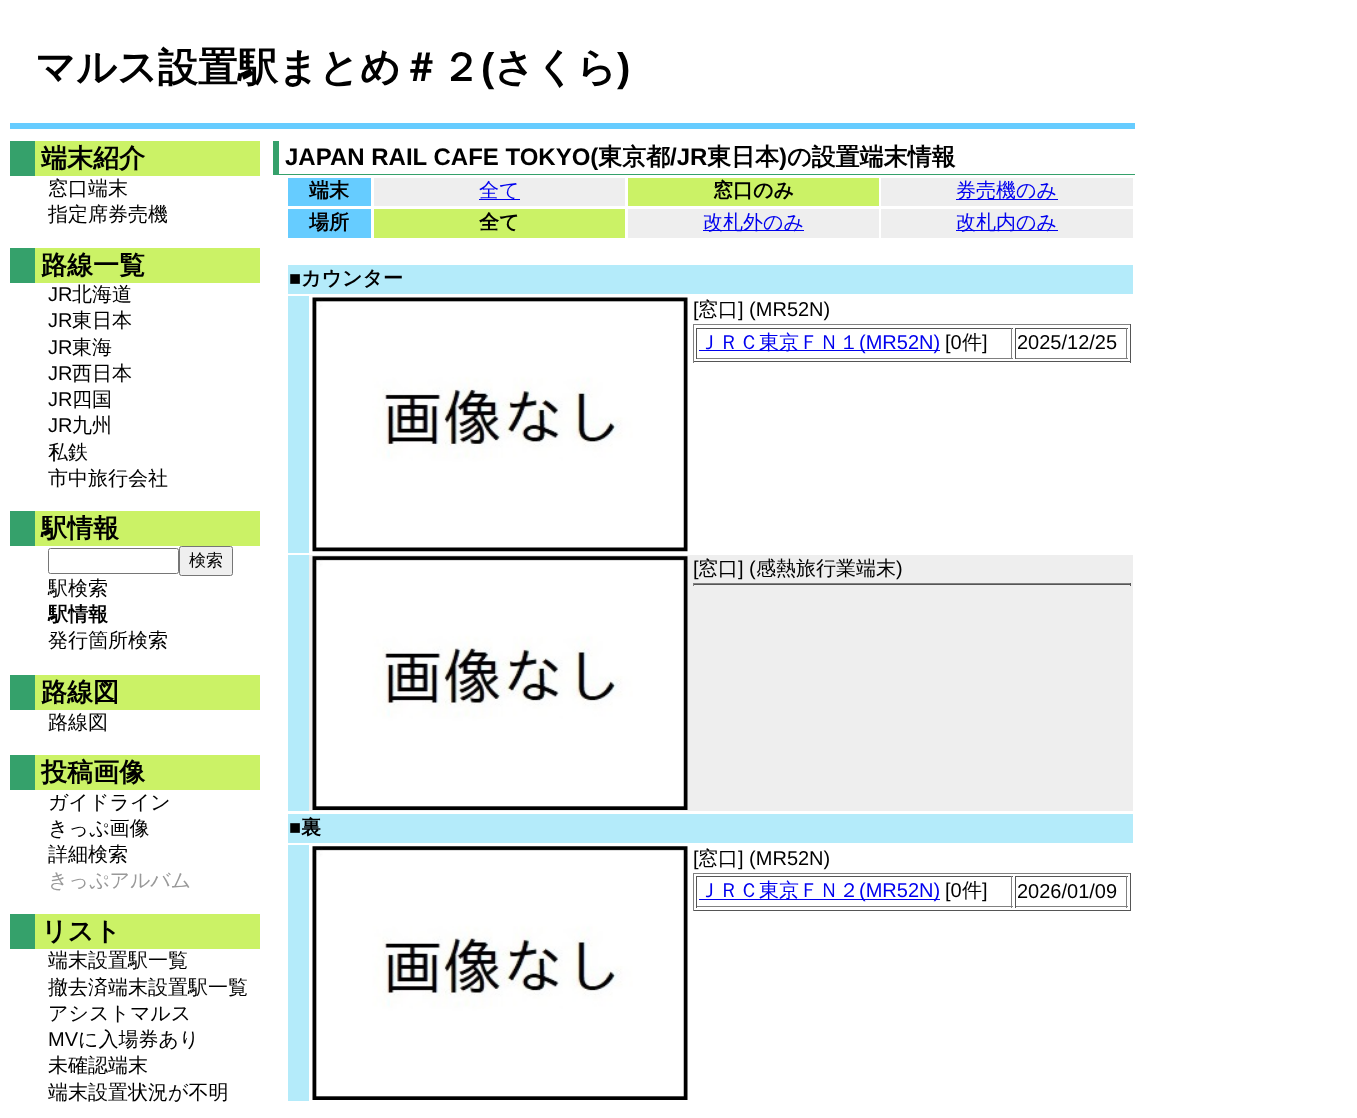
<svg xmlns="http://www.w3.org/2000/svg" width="1357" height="1118">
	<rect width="100%" height="100%" fill="#FFFFFF" />
	<rect x="10" y="123" width="1125" height="6" fill="#66CCFF" />
	<text x="35" y="81" font-family="WenQuanYi Zen Hei" font-size="40" font-weight="700" fill="#000000">マルス設置駅まとめ＃２</text>
	<text x="481" y="81" font-family="Liberation Sans" font-size="40" font-weight="700" fill="#000000">(</text>
	<text x="494" y="81" font-family="WenQuanYi Zen Hei" font-size="40" font-weight="700" fill="#000000">さくら</text>
	<text x="617" y="81" font-family="Liberation Sans" font-size="40" font-weight="700" fill="#000000">)</text>
	<rect x="35" y="141" width="225" height="35" fill="#CBF266" />
	<rect x="10" y="141" width="25" height="35" fill="#35A16B" />
	<text x="41" y="167" font-family="WenQuanYi Zen Hei" font-size="26" font-weight="700" fill="#000000">端末紹介</text>
	<g font-family="WenQuanYi Zen Hei" font-size="20" font-weight="500" fill="#000000">
		<text x="48" y="195">窓口端末</text>
		<text x="48" y="221">指定席券売機</text>
	</g>
	<rect x="35" y="248" width="225" height="35" fill="#CBF266" />
	<rect x="10" y="248" width="25" height="35" fill="#35A16B" />
	<text x="41" y="274" font-family="WenQuanYi Zen Hei" font-size="26" font-weight="700" fill="#000000">路線一覧</text>
	<text x="48" y="301" font-family="Liberation Sans" font-size="20" fill="#000000">JR</text>
	<text x="72" y="301" font-family="WenQuanYi Zen Hei" font-size="20" font-weight="500" fill="#000000">北海道</text>
	<text x="48" y="327" font-family="Liberation Sans" font-size="20" fill="#000000">JR</text>
	<text x="72" y="327" font-family="WenQuanYi Zen Hei" font-size="20" font-weight="500" fill="#000000">東日本</text>
	<text x="48" y="354" font-family="Liberation Sans" font-size="20" fill="#000000">JR</text>
	<text x="72" y="354" font-family="WenQuanYi Zen Hei" font-size="20" font-weight="500" fill="#000000">東海</text>
	<text x="48" y="380" font-family="Liberation Sans" font-size="20" fill="#000000">JR</text>
	<text x="72" y="380" font-family="WenQuanYi Zen Hei" font-size="20" font-weight="500" fill="#000000">西日本</text>
	<text x="48" y="406" font-family="Liberation Sans" font-size="20" fill="#000000">JR</text>
	<text x="72" y="406" font-family="WenQuanYi Zen Hei" font-size="20" font-weight="500" fill="#000000">四国</text>
	<text x="48" y="432" font-family="Liberation Sans" font-size="20" fill="#000000">JR</text>
	<g font-family="WenQuanYi Zen Hei" font-size="20" font-weight="500" fill="#000000">
		<text x="72" y="432">九州</text>
		<text x="48" y="459">私鉄</text>
		<text x="48" y="485">市中旅行会社</text>
	</g>
	<rect x="35" y="511" width="225" height="35" fill="#CBF266" />
	<rect x="10" y="511" width="25" height="35" fill="#35A16B" />
	<text x="41" y="537" font-family="WenQuanYi Zen Hei" font-size="26" font-weight="700" fill="#000000">駅情報</text>
	<rect x="48.5" y="548.5" width="130" height="25" rx="2" fill="none" stroke="#767676" />
	<rect x="179.5" y="546.5" width="53" height="29" rx="2" fill="#EFEFEF" stroke="#767676" />
	<text x="189" y="566" font-family="WenQuanYi Zen Hei" font-size="17" font-weight="500" fill="#000000">検索</text>
	<text x="48" y="595" font-family="WenQuanYi Zen Hei" font-size="20" font-weight="500" fill="#000000">駅検索</text>
	<text x="48" y="621" font-family="WenQuanYi Zen Hei" font-size="20" font-weight="700" fill="#000000">駅情報</text>
	<text x="48" y="647" font-family="WenQuanYi Zen Hei" font-size="20" font-weight="500" fill="#000000">発行箇所検索</text>
	<rect x="35" y="675" width="225" height="35" fill="#CBF266" />
	<rect x="10" y="675" width="25" height="35" fill="#35A16B" />
	<text x="41" y="701" font-family="WenQuanYi Zen Hei" font-size="26" font-weight="700" fill="#000000">路線図</text>
	<text x="48" y="729" font-family="WenQuanYi Zen Hei" font-size="20" font-weight="500" fill="#000000">路線図</text>
	<rect x="35" y="755" width="225" height="35" fill="#CBF266" />
	<rect x="10" y="755" width="25" height="35" fill="#35A16B" />
	<text x="41" y="781" font-family="WenQuanYi Zen Hei" font-size="26" font-weight="700" fill="#000000">投稿画像</text>
	<g font-family="WenQuanYi Zen Hei" font-size="20" font-weight="500" fill="#000000">
		<text x="48" y="809">ガイドライン</text>
		<text x="48" y="835">きっぷ画像</text>
		<text x="48" y="861">詳細検索</text>
	</g>
	<text x="48" y="887" font-family="WenQuanYi Zen Hei" font-size="20" font-weight="500" fill="#999999">きっぷアルバム</text>
	<rect x="35" y="914" width="225" height="35" fill="#CBF266" />
	<rect x="10" y="914" width="25" height="35" fill="#35A16B" />
	<text x="41" y="940" font-family="WenQuanYi Zen Hei" font-size="26" font-weight="700" fill="#000000">リスト</text>
	<g font-family="WenQuanYi Zen Hei" font-size="20" font-weight="500" fill="#000000">
		<text x="48" y="967">端末設置駅一覧</text>
		<text x="48" y="994">撤去済端末設置駅一覧</text>
		<text x="48" y="1020">アシストマルス</text>
	</g>
	<text x="48" y="1046" font-family="Liberation Sans" font-size="20" fill="#000000">MV</text>
	<g font-family="WenQuanYi Zen Hei" font-size="20" font-weight="500" fill="#000000">
		<text x="78" y="1046">に入場券あり</text>
		<text x="48" y="1072">未確認端末</text>
		<text x="48" y="1099">端末設置状況が不明</text>
	</g>
	<rect x="273" y="174" width="862" height="1" fill="#35A16B" />
	<rect x="273" y="141" width="6" height="34" fill="#35A16B" />
	<text x="285" y="165" font-family="Liberation Sans" font-size="24" font-weight="700" fill="#000000">JAPAN RAIL CAFE TOKYO(</text>
	<text x="598" y="165" font-family="WenQuanYi Zen Hei" font-size="24" font-weight="700" fill="#000000">東京都</text>
	<text x="670" y="165" font-family="Liberation Sans" font-size="24" font-weight="700" fill="#000000">/JR</text>
	<text x="707" y="165" font-family="WenQuanYi Zen Hei" font-size="24" font-weight="700" fill="#000000">東日本</text>
	<text x="779" y="165" font-family="Liberation Sans" font-size="24" font-weight="700" fill="#000000">)</text>
	<text x="787" y="165" font-family="WenQuanYi Zen Hei" font-size="24" font-weight="700" fill="#000000">の設置端末情報</text>
	<rect x="288" y="178" width="83" height="28" fill="#66CCFF" />
	<text x="309" y="197" font-family="WenQuanYi Zen Hei" font-size="20" font-weight="700" fill="#000000">端末</text>
	<rect x="374" y="178" width="251" height="28" fill="#EEEEEE" />
	<rect x="479" y="199" width="41" height="1" fill="#0000EE" />
	<text x="479" y="197" font-family="WenQuanYi Zen Hei" font-size="20" font-weight="500" fill="#0000EE">全て</text>
	<rect x="628" y="178" width="251" height="28" fill="#CBF266" />
	<text x="713" y="197" font-family="WenQuanYi Zen Hei" font-size="20" font-weight="700" fill="#000000">窓口のみ</text>
	<rect x="881" y="178" width="252" height="28" fill="#EEEEEE" />
	<rect x="956" y="199" width="102" height="1" fill="#0000EE" />
	<text x="956" y="197" font-family="WenQuanYi Zen Hei" font-size="20" font-weight="500" fill="#0000EE">券売機のみ</text>
	<rect x="288" y="209" width="83" height="29" fill="#66CCFF" />
	<text x="309" y="229" font-family="WenQuanYi Zen Hei" font-size="20" font-weight="700" fill="#000000">場所</text>
	<rect x="374" y="209" width="251" height="29" fill="#CBF266" />
	<text x="479" y="229" font-family="WenQuanYi Zen Hei" font-size="20" font-weight="700" fill="#000000">全て</text>
	<rect x="628" y="209" width="251" height="29" fill="#EEEEEE" />
	<rect x="703" y="230" width="101" height="1" fill="#0000EE" />
	<text x="703" y="229" font-family="WenQuanYi Zen Hei" font-size="20" font-weight="500" fill="#0000EE">改札外のみ</text>
	<rect x="881" y="209" width="252" height="29" fill="#EEEEEE" />
	<rect x="956" y="230" width="102" height="1" fill="#0000EE" />
	<text x="956" y="229" font-family="WenQuanYi Zen Hei" font-size="20" font-weight="500" fill="#0000EE">改札内のみ</text>
	<rect x="288" y="265" width="845" height="29" fill="#B4EBFA" />
	<text x="289" y="285" font-family="Liberation Sans" font-size="20" font-weight="700" fill="#000000">■</text>
	<text x="301" y="285" font-family="WenQuanYi Zen Hei" font-size="20" font-weight="700" fill="#000000">カウンター</text>
	<rect x="288" y="296" width="21" height="257" fill="#B4EBFA" />
	<image x="312" y="297" width="376" height="255" href="assets/img1.png" />
	<text x="693" y="316" font-family="Liberation Sans" font-size="20" fill="#000000">[</text>
	<text x="698" y="316" font-family="WenQuanYi Zen Hei" font-size="20" font-weight="500" fill="#000000">窓口</text>
	<text x="738" y="316" font-family="Liberation Sans" font-size="20" fill="#000000">] (MR52N)</text>
	<rect x="693" y="324" width="438" height="1" fill="#808080" />
	<rect x="1130" y="324" width="1" height="39" fill="#555555" />
	<rect x="693" y="361" width="438" height="1" fill="#555555" />
	<rect x="693" y="324" width="1" height="39" fill="#808080" />
	<rect x="696" y="328" width="317" height="1" fill="#555555" />
	<rect x="1011" y="328" width="1" height="31" fill="#808080" />
	<rect x="696" y="358" width="317" height="1" fill="#808080" />
	<rect x="696" y="328" width="1" height="31" fill="#555555" />
	<rect x="699" y="350" width="241" height="1" fill="#0000EE" />
	<text x="699" y="349" font-family="WenQuanYi Zen Hei" font-size="20" font-weight="500" fill="#0000EE">ＪＲＣ東京ＦＮ１</text>
	<text x="859" y="349" font-family="Liberation Sans" font-size="20" fill="#0000EE">(MR52N)</text>
	<text x="945" y="349" font-family="Liberation Sans" font-size="20" fill="#000000">[0</text>
	<text x="962" y="349" font-family="WenQuanYi Zen Hei" font-size="20" font-weight="500" fill="#000000">件</text>
	<text x="982" y="349" font-family="Liberation Sans" font-size="20" fill="#000000">]</text>
	<rect x="1015" y="328" width="113" height="1" fill="#555555" />
	<rect x="1126" y="328" width="1" height="31" fill="#808080" />
	<rect x="1015" y="358" width="113" height="1" fill="#808080" />
	<rect x="1015" y="328" width="1" height="31" fill="#555555" />
	<text x="1017" y="349" font-family="Liberation Sans" font-size="20" fill="#000000">2025/12/25</text>
	<rect x="309" y="555" width="824" height="256" fill="#EEEEEE" />
	<rect x="288" y="555" width="21" height="256" fill="#B4EBFA" />
	<image x="312" y="556" width="376" height="254" href="assets/img2.png" />
	<text x="693" y="575" font-family="Liberation Sans" font-size="20" fill="#000000">[</text>
	<text x="698" y="575" font-family="WenQuanYi Zen Hei" font-size="20" font-weight="500" fill="#000000">窓口</text>
	<text x="738" y="575" font-family="Liberation Sans" font-size="20" fill="#000000">] (</text>
	<text x="756" y="575" font-family="WenQuanYi Zen Hei" font-size="20" font-weight="500" fill="#000000">感熱旅行業端末</text>
	<text x="896" y="575" font-family="Liberation Sans" font-size="20" fill="#000000">)</text>
	<rect x="693" y="583" width="438" height="1" fill="#808080" />
	<rect x="1130" y="583" width="1" height="3" fill="#555555" />
	<rect x="693" y="584" width="438" height="1" fill="#555555" />
	<rect x="693" y="583" width="1" height="3" fill="#808080" />
	<rect x="288" y="814" width="845" height="29" fill="#B4EBFA" />
	<text x="289" y="834" font-family="Liberation Sans" font-size="20" font-weight="700" fill="#000000">■</text>
	<text x="301" y="834" font-family="WenQuanYi Zen Hei" font-size="20" font-weight="700" fill="#000000">裏</text>
	<rect x="288" y="845" width="21" height="256" fill="#B4EBFA" />
	<image x="312" y="846" width="376" height="254" href="assets/img3.png" />
	<text x="693" y="865" font-family="Liberation Sans" font-size="20" fill="#000000">[</text>
	<text x="698" y="865" font-family="WenQuanYi Zen Hei" font-size="20" font-weight="500" fill="#000000">窓口</text>
	<text x="738" y="865" font-family="Liberation Sans" font-size="20" fill="#000000">] (MR52N)</text>
	<rect x="693" y="873" width="438" height="1" fill="#808080" />
	<rect x="1130" y="873" width="1" height="38" fill="#555555" />
	<rect x="693" y="910" width="438" height="1" fill="#555555" />
	<rect x="693" y="873" width="1" height="38" fill="#808080" />
	<rect x="696" y="876" width="317" height="1" fill="#555555" />
	<rect x="1011" y="876" width="1" height="32" fill="#808080" />
	<rect x="696" y="906" width="317" height="1" fill="#808080" />
	<rect x="696" y="876" width="1" height="32" fill="#555555" />
	<rect x="699" y="899" width="241" height="1" fill="#0000EE" />
	<text x="699" y="897" font-family="WenQuanYi Zen Hei" font-size="20" font-weight="500" fill="#0000EE">ＪＲＣ東京ＦＮ２</text>
	<text x="859" y="897" font-family="Liberation Sans" font-size="20" fill="#0000EE">(MR52N)</text>
	<text x="945" y="897" font-family="Liberation Sans" font-size="20" fill="#000000">[0</text>
	<text x="962" y="897" font-family="WenQuanYi Zen Hei" font-size="20" font-weight="500" fill="#000000">件</text>
	<text x="982" y="897" font-family="Liberation Sans" font-size="20" fill="#000000">]</text>
	<rect x="1015" y="876" width="113" height="1" fill="#555555" />
	<rect x="1126" y="876" width="1" height="32" fill="#808080" />
	<rect x="1015" y="906" width="113" height="1" fill="#808080" />
	<rect x="1015" y="876" width="1" height="32" fill="#555555" />
	<text x="1017" y="898" font-family="Liberation Sans" font-size="20" fill="#000000">2026/01/09</text>
</svg>
